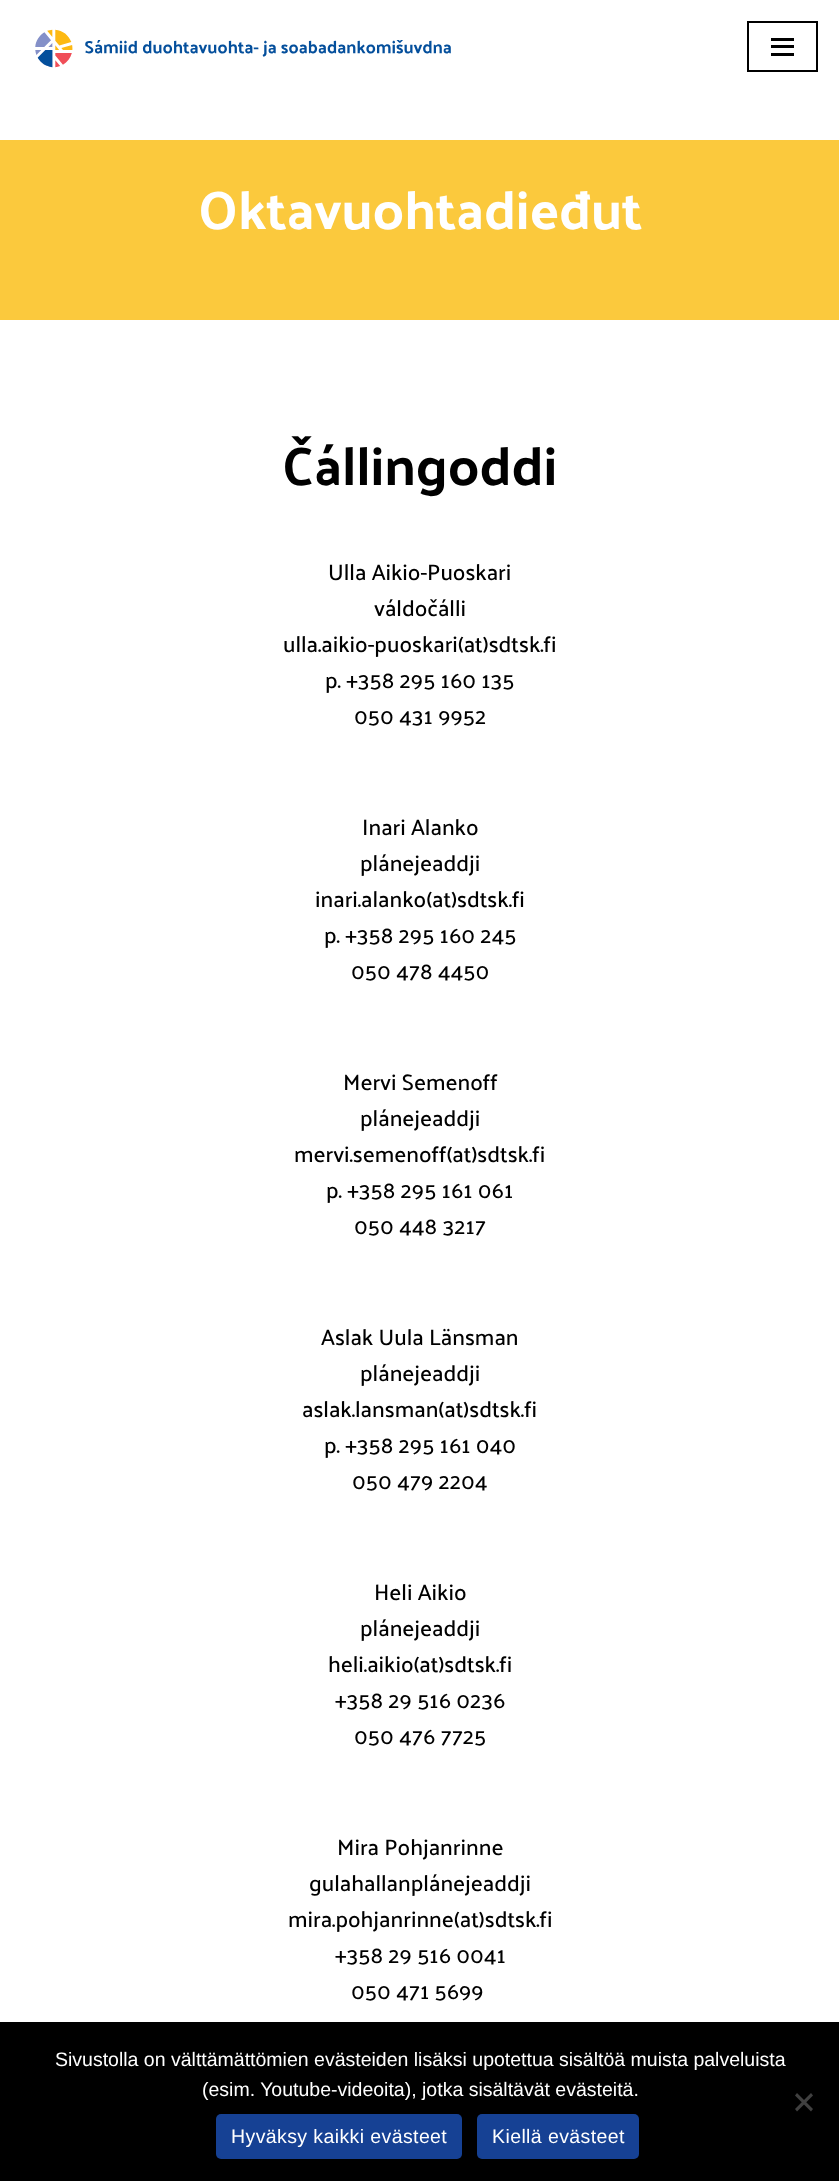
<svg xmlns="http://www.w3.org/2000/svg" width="839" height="2181">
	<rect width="100%" height="100%" fill="#FFFFFF" />
	<image x="35" y="29" width="416" height="39" href="assets/img1.png" />
	<rect x="748" y="22" width="69" height="49" fill="none" stroke="#000000" stroke-width="2" />
	<rect x="771" y="38" width="23" height="3" fill="#000000" />
	<rect x="771" y="45" width="23" height="3" fill="#000000" />
	<rect x="771" y="53" width="23" height="3" fill="#000000" />
	<rect x="0" y="140" width="839" height="180" fill="#FBC93D" />
	<text x="198" y="229" font-family="Palanquin Dark" font-size="54" fill="#FFFFFF">Oktavuohtadieđut</text>
	<text x="282" y="485" font-family="Palanquin Dark" font-size="54" fill="#000000">Čállingoddi</text>
	<g font-family="Palanquin" font-size="22.5" font-weight="500" fill="#000000">
		<text x="328" y="580">Ulla Aikio-Puoskari</text>
		<text x="374" y="616">váldočálli</text>
		<text x="283" y="652">ulla.aikio-puoskari(at)sdtsk.fi</text>
		<text x="325" y="688">p. +358 295 160 135</text>
		<text x="354" y="724">050 431 9952</text>
		<text x="362" y="835">Inari Alanko</text>
		<text x="360" y="871">plánejeaddji</text>
		<text x="315" y="907">inari.alanko(at)sdtsk.fi</text>
		<text x="324" y="943">p. +358 295 160 245</text>
		<text x="351" y="979">050 478 4450</text>
		<text x="343" y="1090">Mervi Semenoff</text>
		<text x="360" y="1126">plánejeaddji</text>
		<text x="294" y="1162">mervi.semenoff(at)sdtsk.fi</text>
		<text x="326" y="1198">p. +358 295 161 061</text>
		<text x="354" y="1234">050 448 3217</text>
		<text x="321" y="1345">Aslak Uula Länsman</text>
		<text x="360" y="1381">plánejeaddji</text>
		<text x="302" y="1417">aslak.lansman(at)sdtsk.fi</text>
		<text x="324" y="1453">p. +358 295 161 040</text>
		<text x="352" y="1489">050 479 2204</text>
		<text x="374" y="1600">Heli Aikio</text>
		<text x="360" y="1636">plánejeaddji</text>
		<text x="328" y="1672">heli.aikio(at)sdtsk.fi</text>
		<text x="335" y="1708">+358 29 516 0236</text>
		<text x="354" y="1744">050 476 7725</text>
		<text x="337" y="1855">Mira Pohjanrinne</text>
		<text x="309" y="1891">gulahallanplánejeaddji</text>
		<text x="288" y="1927">mira.pohjanrinne(at)sdtsk.fi</text>
		<text x="335" y="1963">+358 29 516 0041</text>
		<text x="351" y="1999">050 471 5699</text>
	</g>
	<rect x="0" y="2022" width="839" height="159" fill="#000000" />
	<g font-family="Liberation Sans" font-size="19.5" fill="#FFFFFF">
		<text x="55" y="2066">Sivustolla on välttämättömien evästeiden lisäksi upotettua sisältöä muista palveluista</text>
		<text x="202" y="2096">(esim. Youtube-videoita), jotka sisältävät evästeitä.</text>
	</g>
	<path d="M811 2093L813 2095.5L797 2111.5L795 2109Z" fill="#404040" />
	<path d="M795 2095.5L797 2093L813 2109L811 2111.5Z" fill="#404040" />
	<rect x="216" y="2114" width="246" height="45" rx="5" fill="#164194" />
	<text x="231" y="2143" font-family="Liberation Sans" font-size="19.5" letter-spacing="0.4" fill="#FFFFFF">Hyväksy kaikki evästeet</text>
	<rect x="477" y="2114" width="162" height="45" rx="5" fill="#164194" />
	<text x="492" y="2143" font-family="Liberation Sans" font-size="19.5" letter-spacing="0.4" fill="#FFFFFF">Kiellä evästeet</text>
</svg>
